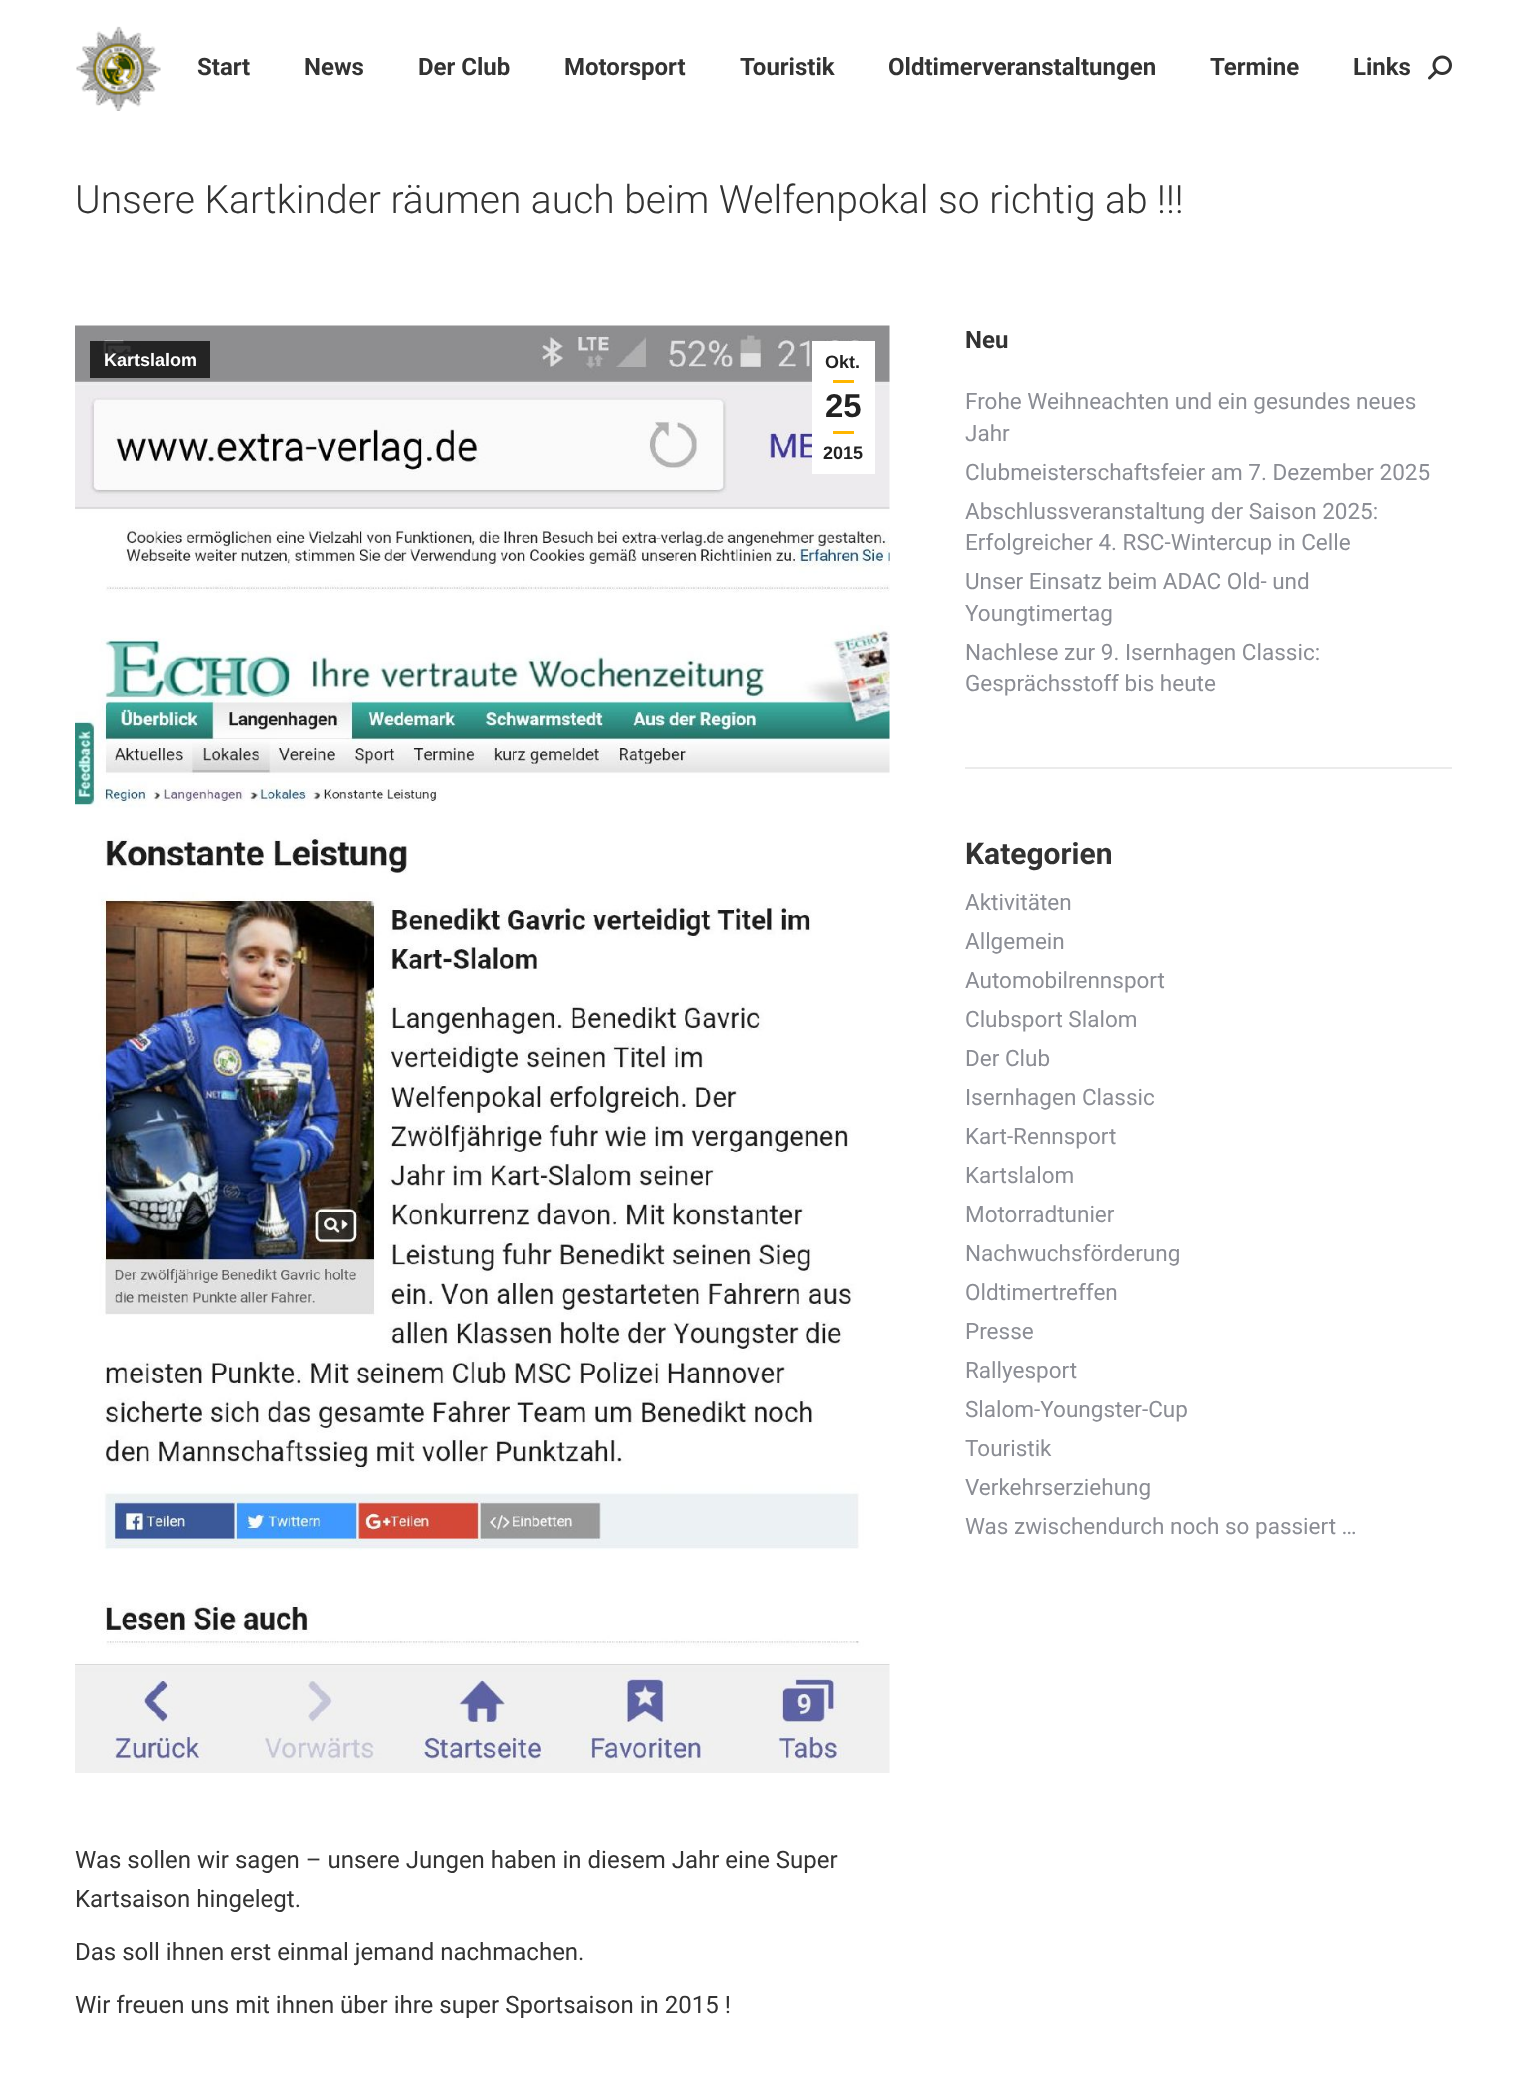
<svg xmlns="http://www.w3.org/2000/svg" width="1527" height="2078">
	<defs>
		<clipPath id="clip1"><rect x="75" y="180" width="1109" height="41" /></clipPath>
	</defs>
	<rect width="100%" height="100%" fill="#FFFFFF" />
	<image x="76" y="26" width="85" height="85" href="assets/img1.png" />
	<g font-family="Roboto" font-size="24" font-weight="700" fill="#333333">
		<text x="197" y="75">Start</text>
		<text x="304" y="75">News</text>
		<text x="418" y="75">Der Club</text>
		<text x="564" y="75">Motorsport</text>
		<text x="740" y="75">Touristik</text>
		<text x="888" y="75">Oldtimerveranstaltungen</text>
		<text x="1210" y="75">Termine</text>
		<text x="1353" y="75">Links</text>
	</g>
	<image x="1428" y="55" width="24" height="25" href="assets/img2.png" />
	<g clip-path="url(#clip1)">
		<text x="75" y="213" font-family="Roboto" font-size="39" font-weight="300" fill="#333333">Unsere Kartkinder räumen auch beim Welfenpokal so richtig ab !!!</text>
	</g>
	<image x="75" y="325" width="815" height="1448" href="assets/img3.png" />
	<rect x="90" y="341" width="120" height="37" fill="#000000" fill-opacity="0.75" />
	<text x="104" y="366" font-family="Liberation Sans" font-size="18" font-weight="700" fill="#FFFFFF">Kartslalom</text>
	<rect x="812" y="341" width="63" height="133" fill="#FFFFFF" />
	<text x="825" y="368" font-family="Liberation Sans" font-size="18" font-weight="700" fill="#222222">Okt.</text>
	<rect x="833" y="380" width="21" height="3" fill="#FFB600" />
	<text x="825" y="417" font-family="Liberation Sans" font-size="33" font-weight="700" fill="#222222">25</text>
	<rect x="833" y="431" width="21" height="3" fill="#FFB600" />
	<text x="823" y="459" font-family="Liberation Sans" font-size="18" font-weight="700" fill="#222222">2015</text>
	<g font-family="Roboto" font-size="24" fill="#333333">
		<text x="75" y="1868">Was sollen wir sagen – unsere Jungen haben in diesem Jahr eine Super</text>
		<text x="75" y="1907">Kartsaison hingelegt.</text>
		<text x="75" y="1960">Das soll ihnen erst einmal jemand nachmachen.</text>
		<text x="75" y="2013">Wir freuen uns mit ihnen über ihre super Sportsaison in 2015 !</text>
	</g>
	<text x="965" y="348" font-family="Roboto" font-size="24" font-weight="700" fill="#333333">Neu</text>
	<g font-family="Roboto" font-size="22.5" fill="#8B8D94">
		<text x="965" y="409">Frohe Weihneachten und ein gesundes neues</text>
		<text x="965" y="441">Jahr</text>
		<text x="965" y="480">Clubmeisterschaftsfeier am 7. Dezember 2025</text>
		<text x="965" y="519">Abschlussveranstaltung der Saison 2025:</text>
		<text x="965" y="550">Erfolgreicher 4. RSC-Wintercup in Celle</text>
		<text x="965" y="589">Unser Einsatz beim ADAC Old- und</text>
		<text x="965" y="621">Youngtimertag</text>
		<text x="965" y="660">Nachlese zur 9. Isernhagen Classic:</text>
		<text x="965" y="691">Gesprächsstoff bis heute</text>
	</g>
	<rect x="965" y="767" width="487" height="2" fill="#EBEBEB" />
	<text x="965" y="864" font-family="Roboto" font-size="30" font-weight="700" fill="#333333">Kategorien</text>
	<g font-family="Roboto" font-size="22.5" fill="#8B8D94">
		<text x="965" y="910">Aktivitäten</text>
		<text x="965" y="949">Allgemein</text>
		<text x="965" y="988">Automobilrennsport</text>
		<text x="965" y="1027">Clubsport Slalom</text>
		<text x="965" y="1066">Der Club</text>
		<text x="965" y="1105">Isernhagen Classic</text>
		<text x="965" y="1144">Kart-Rennsport</text>
		<text x="965" y="1183">Kartslalom</text>
		<text x="965" y="1222">Motorradtunier</text>
		<text x="965" y="1261">Nachwuchsförderung</text>
		<text x="965" y="1300">Oldtimertreffen</text>
		<text x="965" y="1339">Presse</text>
		<text x="965" y="1378">Rallyesport</text>
		<text x="965" y="1417">Slalom-Youngster-Cup</text>
		<text x="965" y="1456">Touristik</text>
		<text x="965" y="1495">Verkehrserziehung</text>
		<text x="965" y="1534">Was zwischendurch noch so passiert …</text>
	</g>
</svg>
